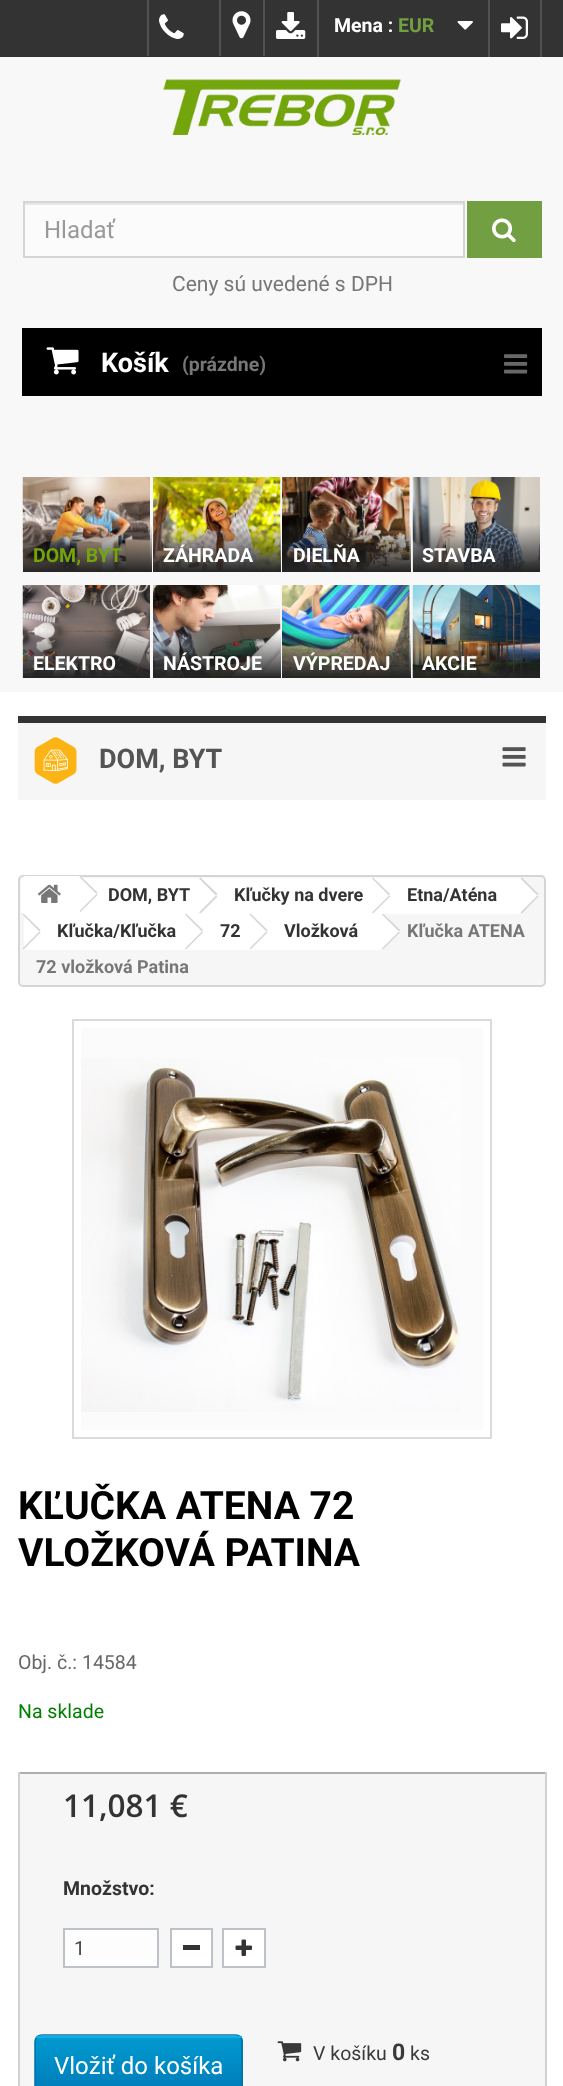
<svg xmlns="http://www.w3.org/2000/svg" width="563" height="2086">
	<defs>
		<linearGradient id="g1" gradientUnits="userSpaceOnUse" x1="87" y1="524" x2="87" y2="572"><stop offset="0" stop-color="#242424" stop-opacity="0" /><stop offset="1" stop-color="#242424" /></linearGradient>
		<linearGradient id="g2" gradientUnits="userSpaceOnUse" x1="217" y1="524" x2="217" y2="572"><stop offset="0" stop-color="#242424" stop-opacity="0" /><stop offset="1" stop-color="#242424" /></linearGradient>
		<linearGradient id="g3" gradientUnits="userSpaceOnUse" x1="347" y1="524" x2="347" y2="572"><stop offset="0" stop-color="#242424" stop-opacity="0" /><stop offset="1" stop-color="#242424" /></linearGradient>
		<linearGradient id="g4" gradientUnits="userSpaceOnUse" x1="476" y1="524" x2="476" y2="572"><stop offset="0" stop-color="#242424" stop-opacity="0" /><stop offset="1" stop-color="#242424" /></linearGradient>
		<linearGradient id="g5" gradientUnits="userSpaceOnUse" x1="217" y1="632" x2="217" y2="678"><stop offset="0" stop-color="#242424" stop-opacity="0" /><stop offset="1" stop-color="#242424" /></linearGradient>
		<linearGradient id="g6" gradientUnits="userSpaceOnUse" x1="347" y1="632" x2="347" y2="678"><stop offset="0" stop-color="#242424" stop-opacity="0" /><stop offset="1" stop-color="#242424" /></linearGradient>
		<clipPath id="clip1"><rect x="35" y="2034" width="208" height="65" rx="8" /></clipPath>
		<linearGradient id="g7" gradientUnits="userSpaceOnUse" x1="139" y1="2036" x2="139" y2="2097"><stop offset="0" stop-color="#009AD0" /><stop offset="1" stop-color="#007AB7" /></linearGradient>
	</defs>
	<rect width="100%" height="100%" fill="#F8F8F8" />
	<rect x="0" y="0" width="563" height="57" fill="#333333" />
	<rect x="147" y="0" width="2" height="56" fill="#515151" />
	<image x="159" y="14" width="25" height="25" href="assets/img1.png" />
	<rect x="263" y="0" width="2" height="56" fill="#515151" />
	<rect x="219" y="0" width="2" height="56" fill="#515151" />
	<image x="232" y="11" width="19" height="28" href="assets/img2.png" />
	<rect x="317" y="0" width="2" height="57" fill="#515151" />
	<image x="276" y="12" width="30" height="27" href="assets/img3.png" />
	<text x="334" y="32" font-family="Roboto" font-size="19.5" font-weight="700" fill="#FFFFFF">Mena :</text>
	<text x="398" y="32" font-family="Roboto" font-size="19.5" font-weight="700" fill="#719F41">EUR</text>
	<image x="457" y="21" width="16" height="9" href="assets/img4.png" />
	<rect x="540" y="0" width="2" height="57" fill="#515151" />
	<rect x="488" y="0" width="2" height="57" fill="#515151" />
	<image x="501" y="16" width="27" height="23" href="assets/img5.png" />
	<image x="163" y="79" width="238" height="56" href="assets/img6.png" />
	<rect x="25" y="205" width="438" height="51" fill="#FBFBFB" />
	<rect x="24" y="203" width="440" height="2" fill="#E8E8E8" />
	<rect x="24" y="202" width="440" height="55" fill="none" stroke="#D6D4D4" stroke-width="2" />
	<text x="44" y="238" font-family="Roboto" font-size="24" fill="#999999">Hladať</text>
	<rect x="467" y="201" width="75" height="57" fill="#719F41" />
	<image x="492" y="218" width="24" height="25" href="assets/img7.png" />
	<text x="172" y="291" font-family="Roboto" font-size="21" fill="#777777">Ceny sú uvedené s DPH</text>
	<rect x="22" y="328" width="520" height="68" fill="#000000" />
	<image x="46" y="347" width="33" height="28" href="assets/img8.png" />
	<text x="101" y="372" font-family="Roboto" font-size="27" font-weight="700" fill="#FFFFFF">Košík</text>
	<text x="182" y="371" font-family="Roboto" font-size="19.5" font-weight="700" fill="#777777">(prázdne)</text>
	<image x="504" y="354" width="24" height="20" href="assets/img9.png" />
	<image x="22" y="477" width="128" height="95" href="assets/img10.png" />
	<rect x="23" y="525" width="129" height="47" fill="url(#g1)" />
	<text x="33" y="562" font-family="Roboto" font-size="19.5" font-weight="700" fill="#73A60B">DOM, BYT</text>
	<image x="153" y="477" width="128" height="95" href="assets/img11.png" />
	<rect x="153" y="525" width="128" height="47" fill="url(#g2)" />
	<text x="163" y="562" font-family="Roboto" font-size="19.5" font-weight="700" fill="#FFFFFF">ZÁHRADA</text>
	<image x="282" y="477" width="128" height="95" href="assets/img12.png" />
	<rect x="282" y="525" width="129" height="47" fill="url(#g3)" />
	<text x="293" y="562" font-family="Roboto" font-size="19.5" font-weight="700" fill="#FFFFFF">DIELŇA</text>
	<image x="412" y="477" width="128" height="95" href="assets/img13.png" />
	<rect x="413" y="525" width="127" height="47" fill="url(#g4)" />
	<text x="422" y="562" font-family="Roboto" font-size="19.5" font-weight="700" fill="#FFFFFF">STAVBA</text>
	<image x="22" y="585" width="128" height="93" href="assets/img14.png" />
	<text x="33" y="670" font-family="Roboto" font-size="19.5" font-weight="700" fill="#FFFFFF">ELEKTRO</text>
	<image x="153" y="585" width="128" height="93" href="assets/img15.png" />
	<rect x="153" y="633" width="128" height="45" fill="url(#g5)" />
	<text x="163" y="670" font-family="Roboto" font-size="19.5" font-weight="700" fill="#FFFFFF">NÁSTROJE</text>
	<image x="282" y="585" width="128" height="93" href="assets/img16.png" />
	<rect x="282" y="633" width="129" height="45" fill="url(#g6)" />
	<text x="293" y="670" font-family="Roboto" font-size="19.5" font-weight="700" fill="#FFFFFF">VÝPREDAJ</text>
	<image x="412" y="585" width="128" height="93" href="assets/img17.png" />
	<text x="422" y="670" font-family="Roboto" font-size="19.5" font-weight="700" fill="#FFFFFF">AKCIE</text>
	<rect x="0" y="692" width="563" height="1394" fill="#FFFFFF" />
	<rect x="18" y="723" width="528" height="77" fill="#F6F6F6" />
	<rect x="18" y="716" width="528" height="7" fill="#333333" />
	<image x="34" y="737" width="43" height="47" href="assets/img18.png" />
	<text x="99" y="768" font-family="Roboto" font-size="27" font-weight="700" fill="#555454">DOM, BYT</text>
	<image x="502" y="747" width="24" height="20" href="assets/img19.png" />
	<rect x="19" y="876" width="526" height="110" rx="4" fill="#F6F6F6" stroke="#D6D4D4" stroke-width="2" />
	<rect x="24" y="914" width="162" height="36" fill="#FFFFFF" />
	<path d="M23.5 913.5L40.5 930L39.5 931.5L22.5 914.5Z" fill="#D6D4D4" />
	<path d="M26 876H78V914H26C23 914 21 912 21 909V881C21 878 23 876 26 876Z" fill="#FFFFFF" />
	<image x="38" y="884" width="23" height="19" href="assets/img20.png" />
	<rect x="78" y="878" width="123" height="36" fill="#FFFFFF" />
	<path d="M81.5 877L96.5 891.5C97.5 893 97.5 894.5 96.5 896L81.5 911C80.5 912 78.5 912 77.5 911L62.5 896C61.5 894.5 61.5 893 62.5 891.5L77.5 877C78.5 875.5 80.5 875.5 81.5 877Z" fill="#FFFFFF" />
	<path d="M80.5 876L97.5 892.5L96.5 894L79.5 877ZM96.5 894L97.5 895L80.5 912L79.5 911Z" fill="#D6D4D4" />
	<text x="108" y="901" font-family="Roboto" font-size="18" font-weight="700" fill="#333333">DOM, BYT</text>
	<path d="M216.5 878.5L231 893C232.5 894.5 232.5 896 231 897.5L216.5 912.5C215 913.5 213.5 913.5 212 912.5L197.5 897.5C196 896 196 894.5 197.5 893L212 878.5C213.5 877 215 877 216.5 878.5Z" fill="#FFFFFF" />
	<rect x="201" y="878" width="173" height="36" fill="#FFFFFF" />
	<path d="M200.5 877.5L217.5 894L216 895.5L199 878.5Z" fill="#D6D4D4" />
	<path d="M216 895.5L217.5 896.5L200.5 913.5L199 912.5Z" fill="#D6D4D4" />
	<text x="234" y="901" font-family="Roboto" font-size="18" font-weight="700" fill="#333333">Kľučky na dvere</text>
	<path d="M389 878.5L404 893C405 894.5 405 896 404 897.5L389 912.5C388 913.5 386 913.5 385 912.5L370 897.5C369 896 369 894.5 370 893L385 878.5C386 877 388 877 389 878.5Z" fill="#FFFFFF" />
	<rect x="374" y="878" width="145" height="36" fill="#FFFFFF" />
	<path d="M373 877.5L390 894L389 895.5L372 878.5Z" fill="#D6D4D4" />
	<path d="M389 895.5L390 896.5L373 913.5L372 912.5Z" fill="#D6D4D4" />
	<text x="407" y="901" font-family="Roboto" font-size="18" font-weight="700" fill="#333333">Etna/Aténa</text>
	<path d="M523 878.5L537.5 893C539 894.5 539 896 537.5 897.5L523 912.5C521.5 913.5 520 913.5 518.5 912.5L503.5 897.5C502.5 896 502.5 894.5 503.5 893L518.5 878.5C520 877 521.5 877 523 878.5Z" fill="#FFFFFF" />
	<path d="M522 877.5L538.5 894L537.5 895.5L520.5 878.5Z" fill="#D6D4D4" />
	<path d="M537.5 895.5L538.5 896.5L522 913.5L520.5 912.5Z" fill="#D6D4D4" />
	<path d="M39.5 931.5L40.5 932.5L23.5 949.5L22.5 948.5Z" fill="#D6D4D4" />
	<text x="57" y="937" font-family="Roboto" font-size="18" font-weight="700" fill="#333333">Kľučka/Kľučka</text>
	<path d="M202.5 914.5L217 929C218.5 930.5 218.5 932 217 933.5L202.5 948.5C201 949.5 199 949.5 198 948.5L183 933.5C182 932 182 930.5 183 929L198 914.5C199 913 201 913 202.5 914.5Z" fill="#FFFFFF" />
	<rect x="186" y="914" width="65" height="36" fill="#FFFFFF" />
	<path d="M186 913.5L203 930L202 931.5L185 914.5Z" fill="#D6D4D4" />
	<path d="M202 931.5L203 932.5L186 949.5L185 948.5Z" fill="#D6D4D4" />
	<text x="220" y="937" font-family="Roboto" font-size="18" font-weight="700" fill="#333333">72</text>
	<path d="M266.5 914.5L281.5 929C282.5 930.5 282.5 932 281.5 933.5L266.5 948.5C265.5 949.5 263.5 949.5 262 948.5L247.5 933.5C246 932 246 930.5 247.5 929L262 914.5C263.5 913 265.5 913 266.5 914.5Z" fill="#FFFFFF" />
	<rect x="251" y="914" width="130" height="36" fill="#FFFFFF" />
	<path d="M250.5 913.5L267.5 930L266.5 931.5L249.5 914.5Z" fill="#D6D4D4" />
	<path d="M266.5 931.5L267.5 932.5L250.5 949.5L249.5 948.5Z" fill="#D6D4D4" />
	<text x="284" y="937" font-family="Roboto" font-size="18" font-weight="700" fill="#333333">Vložková</text>
	<path d="M384 914.5L399 929C400 930.5 400 932 399 933.5L384 948.5C383 949.5 381 949.5 380 948.5L365 933.5C364 932 364 930.5 365 929L380 914.5C381 913 383 913 384 914.5Z" fill="#FFFFFF" />
	<path d="M383 913.5L400 930L399 931.5L382 914.5Z" fill="#D6D4D4" />
	<path d="M399 931.5L400 932.5L383 949.5L382 948.5Z" fill="#D6D4D4" />
	<g font-family="Roboto" font-size="18" font-weight="700" fill="#777777">
		<text x="407" y="937">Kľučka ATENA</text>
		<text x="36" y="973">72 vložková Patina</text>
	</g>
	<rect x="73" y="1020" width="418" height="418" fill="none" stroke="#DBDBDB" stroke-width="2" />
	<rect x="81" y="1028" width="402" height="402" fill="#FBFBFB" />
	<image x="81" y="1058" width="379" height="354" href="assets/img21.png" />
	<g font-family="Roboto" font-size="39" font-weight="700" fill="#000000">
		<text x="18" y="1519">KĽUČKA ATENA 72</text>
		<text x="18" y="1566">VLOŽKOVÁ PATINA</text>
	</g>
	<text x="18" y="1669" font-family="Roboto" font-size="19.5" fill="#666666">Obj. č.: 14584</text>
	<text x="18" y="1718" font-family="Roboto" font-size="19.5" fill="#008000">Na sklade</text>
	<rect x="20" y="1774" width="525" height="312" fill="#F6F6F6" />
	<rect x="18" y="1772" width="528" height="2" fill="#B0AFAF" />
	<rect x="545" y="1772" width="2" height="314" fill="#D2D0D0" />
	<rect x="18" y="1772" width="2" height="314" fill="#D2D0D0" />
	<text x="63" y="1817" font-family="Open Sans" font-size="31.5" font-weight="600" fill="#333333">11,081 €</text>
	<text x="63" y="1895" font-family="Roboto" font-size="19.5" font-weight="700" fill="#333333">Množstvo:</text>
	<rect x="64" y="1929" width="94" height="38" fill="#FDFDFD" stroke="#BDC2C9" stroke-width="2" />
	<text x="74" y="1955" font-family="Roboto" font-size="19.5" fill="#444444">1</text>
	<rect x="171" y="1929" width="41" height="38" fill="#FFFFFF" stroke="#BDC2C9" stroke-width="2" />
	<rect x="183" y="1945" width="17" height="5" fill="#333333" />
	<rect x="223" y="1929" width="42" height="38" fill="#FFFFFF" stroke="#BDC2C9" stroke-width="2" />
	<image x="235" y="1939" width="17" height="17" href="assets/img22.png" />
	<image x="277" y="2041" width="25" height="21" href="assets/img23.png" />
	<text x="313" y="2060" font-family="Roboto" font-size="19.5" fill="#3A3939">V košíku</text>
	<text x="392" y="2060" font-family="Roboto" font-size="23" font-weight="700" fill="#3A3939">0</text>
	<text x="410" y="2060" font-family="Roboto" font-size="19.5" fill="#3A3939">ks</text>
	<g clip-path="url(#clip1)">
		<rect x="35" y="2038" width="208" height="48" fill="url(#g7)" />
	</g>
	<path d="M37 2036.5C38.5 2035.5 40 2035 42 2035H235.5C237.5 2035 239 2035.5 240.5 2036.5" fill="none" stroke="#0079B6" stroke-width="1.5" />
	<path d="M240.5 2036.5C241.5 2038 242 2039.5 242 2041.5V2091C242 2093 241.5 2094.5 240.5 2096" fill="none" stroke="#006FA8" stroke-width="1.5" />
	<path d="M37 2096C36 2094.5 35 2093 35 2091V2041.5C35 2039.5 36 2038 37 2036.5" fill="none" stroke="#006FA8" stroke-width="1.5" />
	<rect x="36" y="2036" width="206" height="2" fill="#06B2E6" />
	<text x="54" y="2074" font-family="Roboto" font-size="24" fill="#FFFFFF">Vložiť do košíka</text>
</svg>
